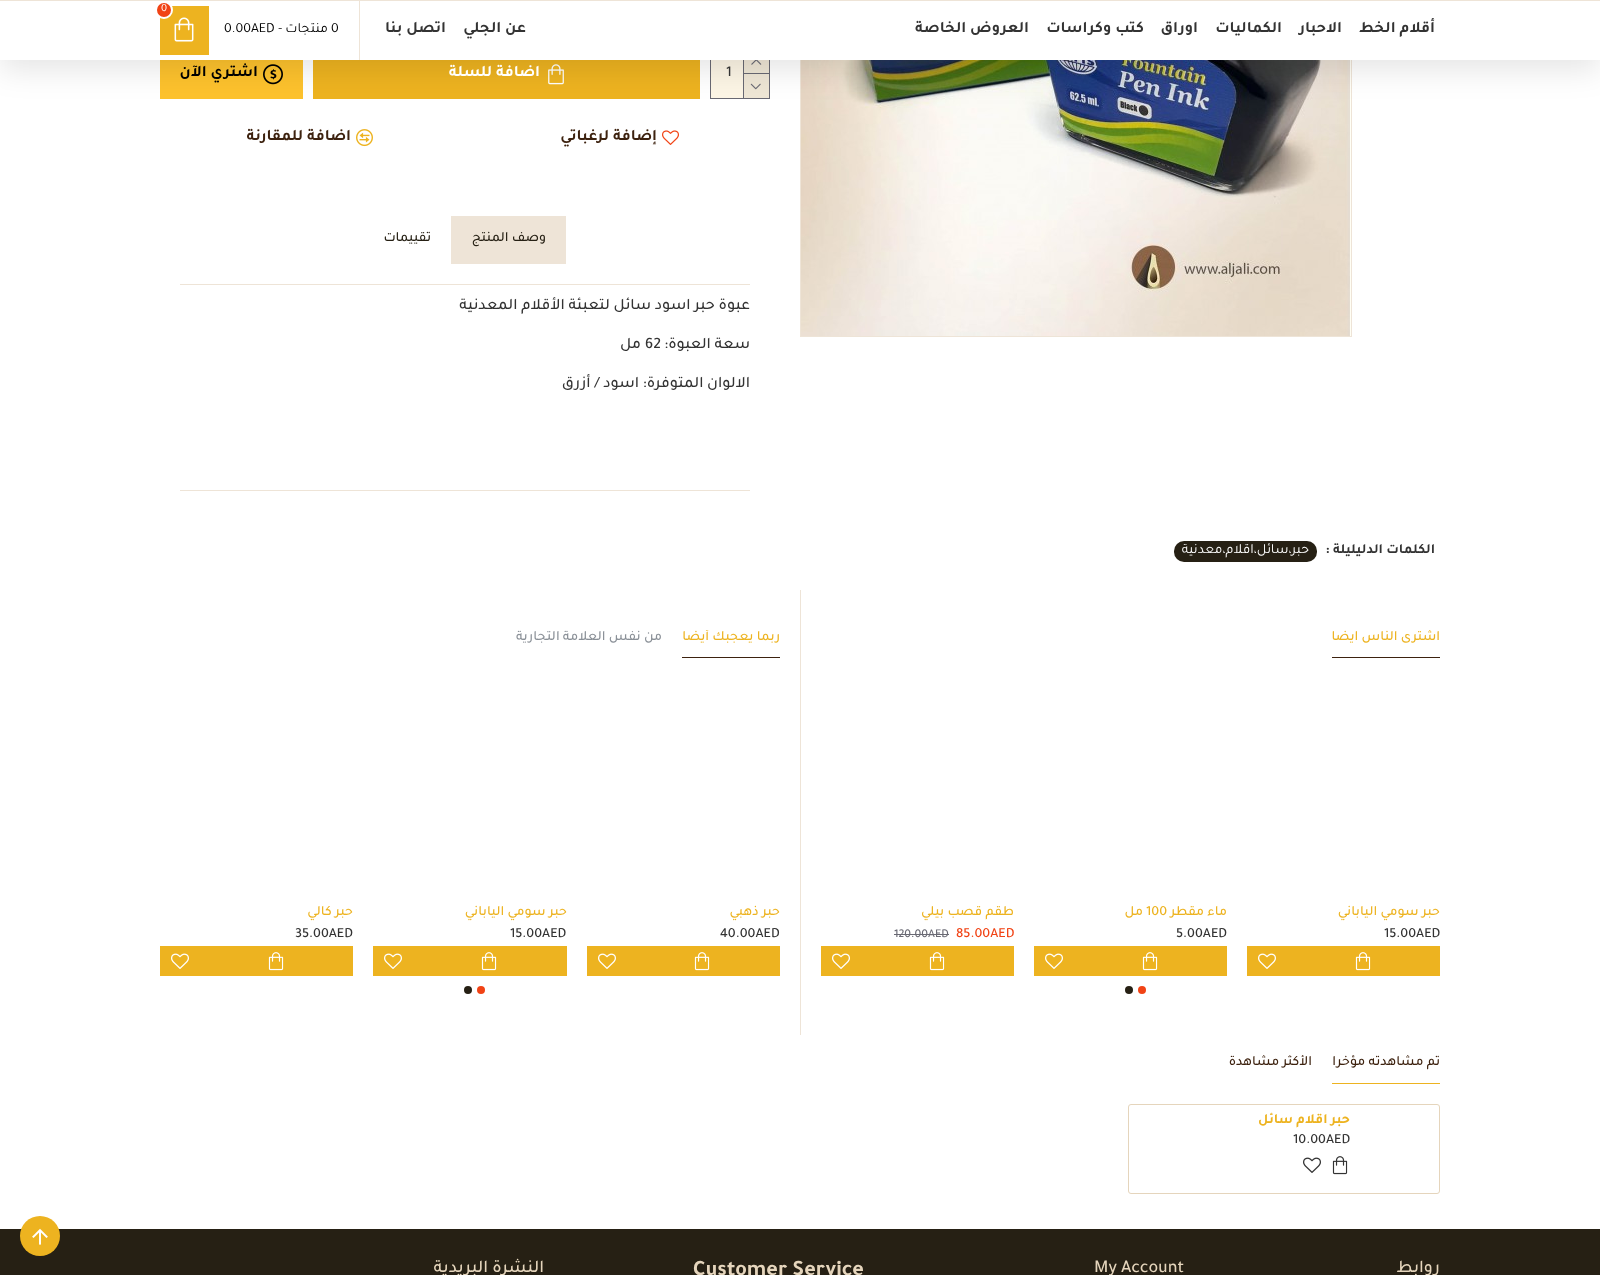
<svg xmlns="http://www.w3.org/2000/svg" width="1600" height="1275">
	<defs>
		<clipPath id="clip1"><rect x="821" y="630" width="619" height="28" /></clipPath>
		<clipPath id="clip2"><rect x="160" y="630" width="620" height="28" /></clipPath>
		<clipPath id="clip3"><rect x="160" y="1055" width="1280" height="29" /></clipPath>
	</defs>
	<rect width="100%" height="100%" fill="#FFFFFF" />
	<rect x="800.5" y="-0.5" width="551" height="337" fill="none" stroke="#EEE4D7" />
	<image x="801" y="60" width="550" height="276" href="assets/img2.png" />
	<rect x="710.5" y="49.5" width="59" height="49" fill="none" stroke="#696973" />
	<rect x="743" y="60" width="1" height="38" fill="#696973" />
	<rect x="744" y="60" width="25" height="13" fill="#EEE6D5" />
	<rect x="744" y="73" width="25" height="1" fill="#696973" />
	<image x="751" y="60" width="11" height="5" href="assets/img3.png" />
	<rect x="744" y="74" width="25" height="24" fill="#EEE6D5" />
	<image x="750" y="83" width="11" height="7" href="assets/img4.png" />
	<rect x="711" y="60" width="32" height="38" fill="#FCF5E5" />
	<rect x="313" y="60" width="387" height="39" fill="#EDB320" />
	<image x="548" y="64" width="16" height="21" href="assets/img5.png" />
	<rect x="160" y="60" width="143" height="39" fill="#FDC22D" />
	<image x="263" y="64" width="20" height="21" href="assets/img6.png" />
	<rect x="0" y="10" width="1600" height="60" fill="#000000" fill-opacity="0.1" filter="blur(15px)" />
	<rect x="0" y="1" width="1600" height="59" fill="#FFFFFF" />
	<rect x="0" y="0" width="1600" height="1" fill="#EEE4D7" />
	<g font-family="Tajawal" font-size="16" font-weight="700" direction="rtl" fill="#333333">
		<text x="1435" y="32">أقلام الخط</text>
		<text x="1342" y="32">الاحبار</text>
		<text x="1282" y="32">الكماليات</text>
		<text x="1198" y="32">اوراق</text>
		<text x="1144" y="32">كتب وكراسات</text>
		<text x="1029" y="32">العروض الخاصة</text>
		<text x="526" y="32">عن الجلي</text>
		<text x="446" y="32">اتصل بنا</text>
	</g>
	<rect x="359" y="0" width="1" height="60" fill="#EEE4D7" />
	<rect x="160" y="6" width="49" height="49" fill="#EDB320" />
	<circle cx="164" cy="10" r="8" fill="#F14315" stroke="#FFFFFF" stroke-width="2" />
	<text x="161" y="11" font-family="Tajawal" font-size="11" fill="#FFFFFF">0</text>
	<text x="331" y="32" font-family="Tajawal" font-size="14" fill="#000000">0</text>
	<text x="328" y="32" font-family="Tajawal" font-size="14" direction="rtl" fill="#000000">منتجات -</text>
	<text x="224" y="32" font-family="Tajawal" font-size="14" fill="#000000">0.00AED</text>
	<image x="174" y="17" width="20" height="25" href="assets/img1.png" />
	<text x="726" y="76" font-family="Tajawal" font-size="15" font-weight="500" fill="#333333">1</text>
	<text x="540" y="76" font-family="Tajawal" font-size="16" font-weight="700" direction="rtl" fill="#FFFFFF">اضافة للسلة</text>
	<text x="258" y="76" font-family="Tajawal" font-size="16" font-weight="700" direction="rtl" fill="#000000">اشتري الآن</text>
	<image x="662" y="130" width="17" height="15" href="assets/img7.png" />
	<text x="657" y="140" font-family="Tajawal" font-size="16" font-weight="700" direction="rtl" fill="#3D220F">إضافة لرغباتي</text>
	<image x="356" y="129" width="17" height="18" href="assets/img8.png" />
	<text x="351" y="140" font-family="Tajawal" font-size="16" font-weight="700" direction="rtl" fill="#3D220F">اضافة للمقارنة</text>
	<rect x="451" y="216" width="115" height="48" fill="#EEE4D7" />
	<g font-family="Tajawal" font-size="14" font-weight="500" direction="rtl" fill="#262014">
		<text x="546" y="241">وصف المنتج</text>
		<text x="431" y="241">تقييمات</text>
	</g>
	<rect x="180" y="284" width="570" height="1" fill="#EEE4D7" />
	<rect x="180" y="490" width="570" height="1" fill="#EEE4D7" />
	<g font-family="Tajawal" font-size="16" font-weight="500" direction="rtl" fill="#333333">
		<text x="750" y="309">عبوة حبر اسود سائل لتعبئة الأقلام المعدنية</text>
		<text x="750" y="348">سعة العبوة:</text>
	</g>
	<text x="645" y="348" font-family="Tajawal" font-size="16" font-weight="500" fill="#333333">62</text>
	<g font-family="Tajawal" font-size="16" font-weight="500" direction="rtl" fill="#333333">
		<text x="641" y="348">مل</text>
		<text x="750" y="387">الالوان المتوفرة: اسود / أزرق</text>
	</g>
	<text x="1435" y="553" font-family="Tajawal" font-size="14" font-weight="700" direction="rtl" fill="#333333">الكلمات الدليليلة :</text>
	<rect x="1174" y="541" width="143" height="21" rx="10" fill="#262014" />
	<text x="1309" y="553" font-family="Tajawal" font-size="14" direction="rtl" fill="#FFFFFF">حبر،سائل،اقلام،معدنية</text>
	<rect x="800" y="590" width="1" height="445" fill="#EEE4D7" />
	<rect x="1332" y="657" width="108" height="1" fill="#3D220F" />
	<g clip-path="url(#clip1)">
		<text x="1440" y="640" font-family="Tajawal" font-size="14" font-weight="500" direction="rtl" fill="#EDB320">اشترى الناس ايضاً</text>
	</g>
	<text x="1440" y="915" font-family="Tajawal" font-size="14" font-weight="500" direction="rtl" fill="#EDB320">حبر سومي الياباني</text>
	<text x="1384" y="937" font-family="Tajawal" font-size="14" font-weight="500" fill="#333333">15.00AED</text>
	<rect x="1247" y="946" width="193" height="30" fill="#EDB320" />
	<image x="1355" y="952" width="16" height="19" href="assets/img9.png" />
	<image x="1258" y="953" width="18" height="16" href="assets/img10.png" />
	<text x="1227" y="915" font-family="Tajawal" font-size="14" font-weight="500" direction="rtl" fill="#EDB320">ماء مقطر</text>
	<text x="1146" y="915" font-family="Tajawal" font-size="14" font-weight="500" fill="#EDB320">100</text>
	<text x="1143" y="915" font-family="Tajawal" font-size="14" font-weight="500" direction="rtl" fill="#EDB320">مل</text>
	<text x="1176" y="937" font-family="Tajawal" font-size="14" font-weight="500" fill="#333333">5.00AED</text>
	<rect x="1034" y="946" width="193" height="30" fill="#EDB320" />
	<image x="1142" y="952" width="16" height="19" href="assets/img9.png" />
	<image x="1045" y="953" width="18" height="16" href="assets/img10.png" />
	<text x="1014" y="915" font-family="Tajawal" font-size="14" font-weight="500" direction="rtl" fill="#EDB320">طقم قصب بيلي</text>
	<text x="956" y="937" font-family="Tajawal" font-size="14" font-weight="500" fill="#F14315">85.00AED</text>
	<text x="894" y="937" font-family="Tajawal" font-size="12" font-weight="500" fill="#696973">120.00AED</text>
	<rect x="894" y="934" width="55" height="1" fill="#696973" />
	<rect x="821" y="946" width="193" height="30" fill="#EDB320" />
	<image x="929" y="952" width="16" height="19" href="assets/img9.png" />
	<image x="832" y="953" width="18" height="16" href="assets/img10.png" />
	<circle cx="1142" cy="990" r="4" fill="#F14315" />
	<circle cx="1129" cy="990" r="4" fill="#262014" />
	<rect x="682" y="657" width="98" height="1" fill="#3D220F" />
	<g clip-path="url(#clip2)">
		<text x="780" y="640" font-family="Tajawal" font-size="14" font-weight="500" direction="rtl" fill="#EDB320">ربما يعجبك أيضاً</text>
	</g>
	<text x="662" y="640" font-family="Tajawal" font-size="14" font-weight="500" direction="rtl" fill="#8B9198">من نفس العلامة التجارية</text>
	<text x="780" y="915" font-family="Tajawal" font-size="14" font-weight="500" direction="rtl" fill="#EDB320">حبر ذهبي</text>
	<text x="720" y="937" font-family="Tajawal" font-size="14" font-weight="500" fill="#333333">40.00AED</text>
	<rect x="587" y="946" width="193" height="30" fill="#EDB320" />
	<image x="694" y="952" width="16" height="19" href="assets/img9.png" />
	<image x="598" y="953" width="18" height="16" href="assets/img10.png" />
	<text x="567" y="915" font-family="Tajawal" font-size="14" font-weight="500" direction="rtl" fill="#EDB320">حبر سومي الياباني</text>
	<text x="510" y="937" font-family="Tajawal" font-size="14" font-weight="500" fill="#333333">15.00AED</text>
	<rect x="373" y="946" width="194" height="30" fill="#EDB320" />
	<image x="481" y="952" width="16" height="19" href="assets/img9.png" />
	<image x="384" y="953" width="18" height="16" href="assets/img10.png" />
	<text x="353" y="915" font-family="Tajawal" font-size="14" font-weight="500" direction="rtl" fill="#EDB320">حبر كالي</text>
	<text x="295" y="937" font-family="Tajawal" font-size="14" font-weight="500" fill="#333333">35.00AED</text>
	<rect x="160" y="946" width="193" height="30" fill="#EDB320" />
	<image x="268" y="952" width="16" height="19" href="assets/img9.png" />
	<image x="171" y="953" width="18" height="16" href="assets/img10.png" />
	<circle cx="481" cy="990" r="4" fill="#F14315" />
	<circle cx="468" cy="990" r="4" fill="#262014" />
	<rect x="0" y="1229" width="1600" height="46" fill="#262014" />
	<rect x="1332" y="1083" width="108" height="1" fill="#EDB320" />
	<g clip-path="url(#clip3)">
		<g font-family="Tajawal" font-size="14" font-weight="500" direction="rtl" fill="#3D220F">
			<text x="1440" y="1065">تم مشاهدته مؤخراً</text>
			<text x="1312" y="1065">الأكثر مشاهدة</text>
		</g>
	</g>
	<rect x="1128.5" y="1104.5" width="311" height="89" rx="2.5" fill="none" stroke="#E5D5BC" />
	<text x="1350" y="1123" font-family="Tajawal" font-size="14" font-weight="700" direction="rtl" fill="#EDB320">حبر اقلام سائل</text>
	<text x="1293" y="1143" font-family="Tajawal" font-size="14" font-weight="500" fill="#333333">10.00AED</text>
	<image x="1332" y="1156" width="16" height="19" href="assets/img11.png" />
	<image x="1303" y="1157" width="18" height="16" href="assets/img12.png" />
	<text x="1440" y="1272" font-family="Tajawal" font-size="18" font-weight="500" direction="rtl" fill="#E5D5BC">روابط</text>
	<text x="1094" y="1272" font-family="Tajawal" font-size="18" font-weight="500" fill="#E5D5BC">My Account</text>
	<text x="693" y="1275" font-family="Tajawal" font-size="22" font-weight="700" fill="#E5D5BC">Customer Service</text>
	<text x="544" y="1272" font-family="Tajawal" font-size="18" font-weight="500" direction="rtl" fill="#E5D5BC">النشرة البريدية</text>
	<circle cx="40" cy="1236" r="20" fill="#EDB320" />
	<image x="32" y="1228" width="16" height="17" href="assets/img13.png" />
</svg>
